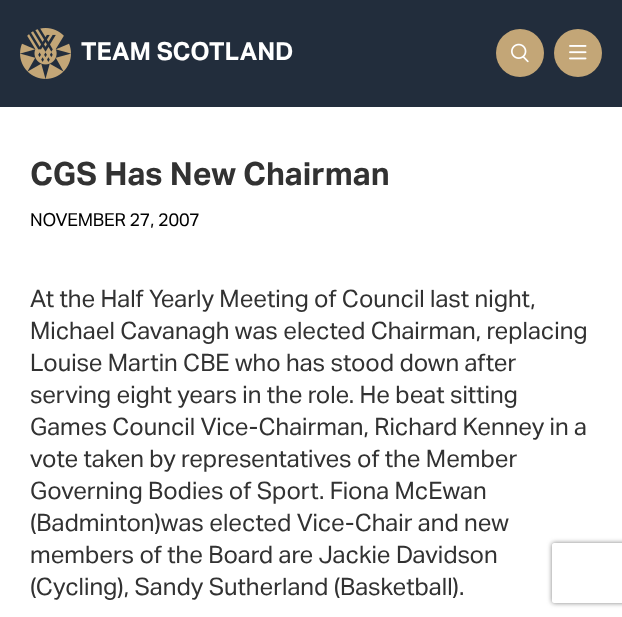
<svg xmlns="http://www.w3.org/2000/svg" width="622" height="617">
	<defs>
		<clipPath id="clip1"><path d="M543 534H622V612H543ZM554 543H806C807 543 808 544 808 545V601C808 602 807 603 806 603H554C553 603 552 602 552 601V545C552 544 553 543 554 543Z" clip-rule="evenodd" /></clipPath>
	</defs>
	<rect width="100%" height="100%" fill="#FFFFFF" />
	<rect x="0" y="0" width="622" height="107" fill="#222D3C" />
	<image x="20" y="28" width="51" height="51" href="assets/img1.png" />
	<text x="81" y="60" font-family="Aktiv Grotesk" font-size="25" font-weight="700" fill="#FFFFFF">TEAM SCOTLAND</text>
	<circle cx="520" cy="53" r="24" fill="#C3A677" />
	<image x="511" y="43" width="18" height="20" href="assets/img2.png" />
	<circle cx="578" cy="53" r="24" fill="#C3A677" />
	<image x="569" y="45" width="18" height="15" href="assets/img3.png" />
	<text x="30" y="185" font-family="Aktiv Grotesk" font-size="32" font-weight="700" fill="#323232">CGS Has New Chairman</text>
	<text x="30" y="226" font-family="Aktiv Grotesk" font-size="18" letter-spacing="-0.2" fill="#000000">NOVEMBER 27, 2007</text>
	<g font-family="Aktiv Grotesk" font-size="24" fill="#323232">
		<text x="30" y="307">At the Half Yearly Meeting of Council last night,</text>
		<text x="30" y="339">Michael Cavanagh was elected Chairman, replacing</text>
		<text x="30" y="371">Louise Martin CBE who has stood down after</text>
		<text x="30" y="403">serving eight years in the role. He beat sitting</text>
		<text x="30" y="435">Games Council Vice-Chairman, Richard Kenney in a</text>
		<text x="30" y="467">vote taken by representatives of the Member</text>
		<text x="30" y="499">Governing Bodies of Sport. Fiona McEwan</text>
		<text x="30" y="531">(Badminton)was elected Vice-Chair and new</text>
		<text x="30" y="563">members of the Board are Jackie Davidson</text>
		<text x="30" y="595">(Cycling), Sandy Sutherland (Basketball).</text>
	</g>
	<g clip-path="url(#clip1)">
		<rect x="552" y="543" width="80" height="60" rx="2" fill="#808080" filter="blur(2.5px)" />
	</g>
</svg>
